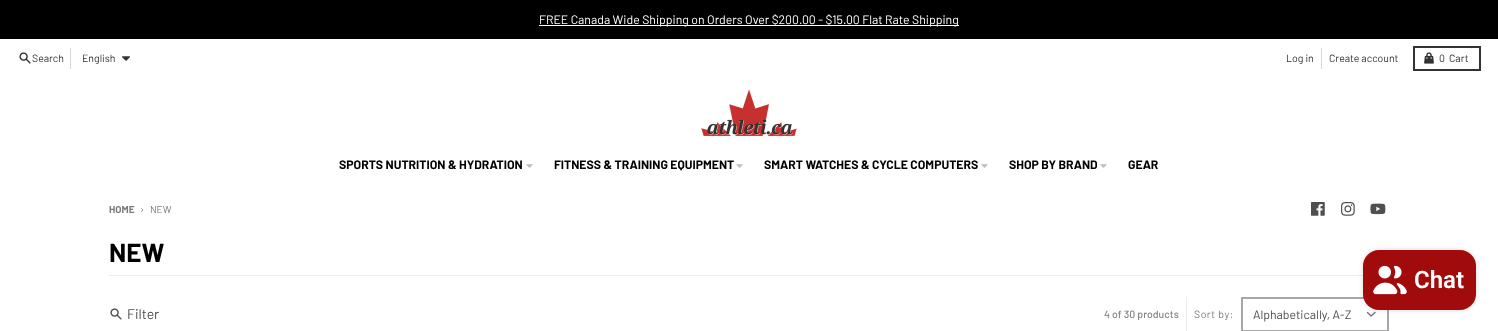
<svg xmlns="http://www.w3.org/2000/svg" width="1498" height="331">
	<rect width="100%" height="100%" fill="#FFFFFF" />
	<rect x="0" y="0" width="1498" height="39" fill="#000000" />
	<rect x="539" y="25" width="420" height="1" fill="#FFFFFF" />
	<text x="539" y="24" font-family="Barlow" font-size="12.25" fill="#FFFFFF">FREE Canada Wide Shipping on Orders Over $200.00 - $15.00 Flat Rate Shipping</text>
	<image x="19" y="52" width="12" height="12" href="assets/img1.png" />
	<text x="32" y="62" font-family="Barlow" font-size="10.5" fill="#333333">Search</text>
	<rect x="70" y="48" width="1" height="21" fill="#D6D6D6" />
	<text x="82" y="62" font-family="Barlow" font-size="10.5" fill="#333333">English</text>
	<image x="122" y="56" width="8" height="5" href="assets/img2.png" />
	<text x="1286" y="62" font-family="Barlow" font-size="10.5" fill="#333333">Log in</text>
	<rect x="1321" y="48" width="1" height="21" fill="#D6D6D6" />
	<text x="1329" y="62" font-family="Barlow" font-size="10.5" fill="#333333">Create account</text>
	<rect x="1414" y="47" width="66" height="23" fill="none" stroke="#333333" stroke-width="2" />
	<image x="1424" y="52" width="10" height="12" href="assets/img3.png" />
	<g font-family="Barlow" font-size="10.5" fill="#333333">
		<text x="1439" y="62">0</text>
		<text x="1449" y="62">Cart</text>
	</g>
	<image x="700" y="88" width="99" height="49" href="assets/img4.png" />
	<text x="339" y="169" font-family="Barlow" font-size="12.25" font-weight="700" fill="#000000">SPORTS NUTRITION &amp; HYDRATION</text>
	<image x="526" y="164" width="7" height="4" href="assets/img5.png" />
	<text x="554" y="169" font-family="Barlow" font-size="12.25" font-weight="700" fill="#000000">FITNESS &amp; TRAINING EQUIPMENT</text>
	<image x="736" y="164" width="7" height="4" href="assets/img5.png" />
	<text x="764" y="169" font-family="Barlow" font-size="12.25" font-weight="700" fill="#000000">SMART WATCHES &amp; CYCLE COMPUTERS</text>
	<image x="981" y="164" width="7" height="4" href="assets/img5.png" />
	<text x="1009" y="169" font-family="Barlow" font-size="12.25" font-weight="700" fill="#000000">SHOP BY BRAND</text>
	<image x="1100" y="164" width="7" height="4" href="assets/img5.png" />
	<text x="1128" y="169" font-family="Barlow" font-size="12.25" font-weight="700" fill="#000000">GEAR</text>
	<text x="109" y="213" font-family="Barlow" font-size="10" font-weight="700" fill="#7B7B7B">HOME</text>
	<text x="140" y="213" font-family="Barlow" font-size="10.5" fill="#7B7B7B">›</text>
	<text x="150" y="213" font-family="Barlow" font-size="10" fill="#7B7B7B">NEW</text>
	<image x="1311" y="202" width="14" height="14" href="assets/img6.png" />
	<image x="1341" y="202" width="14" height="14" href="assets/img7.png" />
	<image x="1370" y="203" width="16" height="12" href="assets/img8.png" />
	<rect x="109" y="275" width="1254" height="1" fill="#EDEDED" />
	<text x="109" y="262" font-family="Barlow" font-size="26" font-weight="700" fill="#000000">NEW</text>
	<image x="110" y="308" width="12" height="12" href="assets/img9.png" />
	<text x="127" y="319" font-family="Barlow" font-size="14" fill="#4F4F4F">Filter</text>
	<text x="1104" y="318" font-family="Barlow" font-size="10.5" font-weight="500" fill="#848484">4 of 30 products</text>
	<rect x="1186" y="297" width="1" height="34" fill="#EDEDED" />
	<text x="1194" y="318" font-family="Barlow" font-size="10.5" letter-spacing="0.5" fill="#7B7B7B">Sort by:</text>
	<path d="M1367.5 312.5L1371 316L1375 312.5" fill="none" stroke="#6B7280" stroke-width="1.4" stroke-linecap="round" stroke-linejoin="round" />
	<rect x="1242" y="298" width="146" height="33" fill="none" stroke="#A7A7A7" stroke-width="2" />
	<text x="1253" y="319" font-family="Barlow" font-size="12.25" fill="#4F4F4F">Alphabetically, A-Z</text>
	<rect x="1363" y="250" width="113" height="60" rx="16" fill="#000000" fill-opacity="0.15" filter="blur(2.5px)" />
	<rect x="1363" y="250" width="113" height="60" rx="16" fill="#A10B0B" />
	<image x="1373" y="265" width="34" height="30" href="assets/img10.png" />
	<text x="1414" y="288" font-family="Roboto" font-size="24" font-weight="600" fill="#FFFFFF">Chat</text>
</svg>
